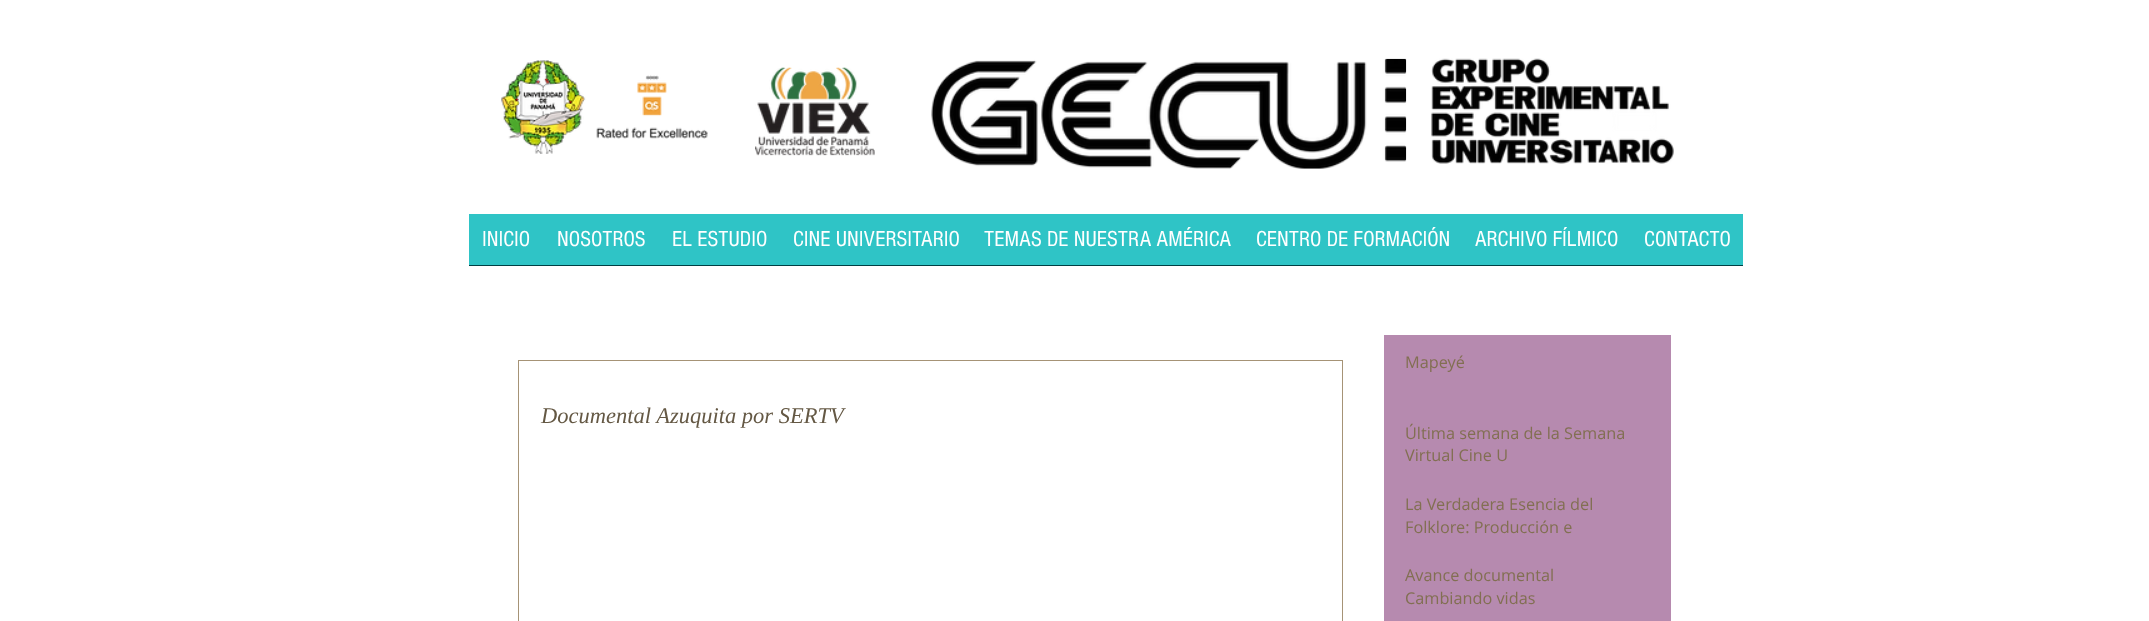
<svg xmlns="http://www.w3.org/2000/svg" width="2149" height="621">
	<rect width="100%" height="100%" fill="#FFFFFF" />
	<image x="501" y="60" width="207" height="94" href="assets/img1.png" />
	<image x="755" y="67" width="120" height="89" href="assets/img2.png" />
	<image x="931" y="58" width="476" height="111" href="assets/img3.png" />
	<image x="1431" y="58" width="243" height="106" href="assets/img4.png" />
	<rect x="469" y="214" width="1274" height="51" fill="#2FC4C6" />
	<rect x="469" y="265" width="1274" height="1" fill="#003F44" />
	<g font-family="'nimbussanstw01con'" font-size="22.5" fill="#FFFFFF">
		<text x="482" y="246">INICIO</text>
		<text x="557" y="246">NOSOTROS</text>
		<text x="672" y="246">EL ESTUDIO</text>
		<text x="793" y="246">CINE UNIVERSITARIO</text>
		<text x="984" y="246">TEMAS DE NUESTRA AMÉRICA</text>
		<text x="1256" y="246">CENTRO DE FORMACIÓN</text>
		<text x="1475" y="246">ARCHIVO FÍLMICO</text>
		<text x="1644" y="246">CONTACTO</text>
	</g>
	<rect x="1384" y="335" width="287" height="286" fill="#B68AAF" />
	<rect x="518.5" y="360.5" width="824" height="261" fill="none" stroke="#A69376" />
	<text x="541" y="423" font-family="Liberation Serif" font-size="22.5" font-style="italic" fill="#645844">Documental Azuquita por SERTV</text>
	<g font-family="Open Sans" font-size="16.25" fill="#826F52">
		<text x="1405" y="368">Mapeyé</text>
		<text x="1405" y="439">Última semana de la Semana</text>
		<text x="1405" y="461">Virtual Cine U</text>
		<text x="1405" y="510">La Verdadera Esencia del</text>
		<text x="1405" y="533">Folklore: Producción e</text>
		<text x="1405" y="581">Avance documental</text>
		<text x="1405" y="604">Cambiando vidas</text>
	</g>
</svg>
